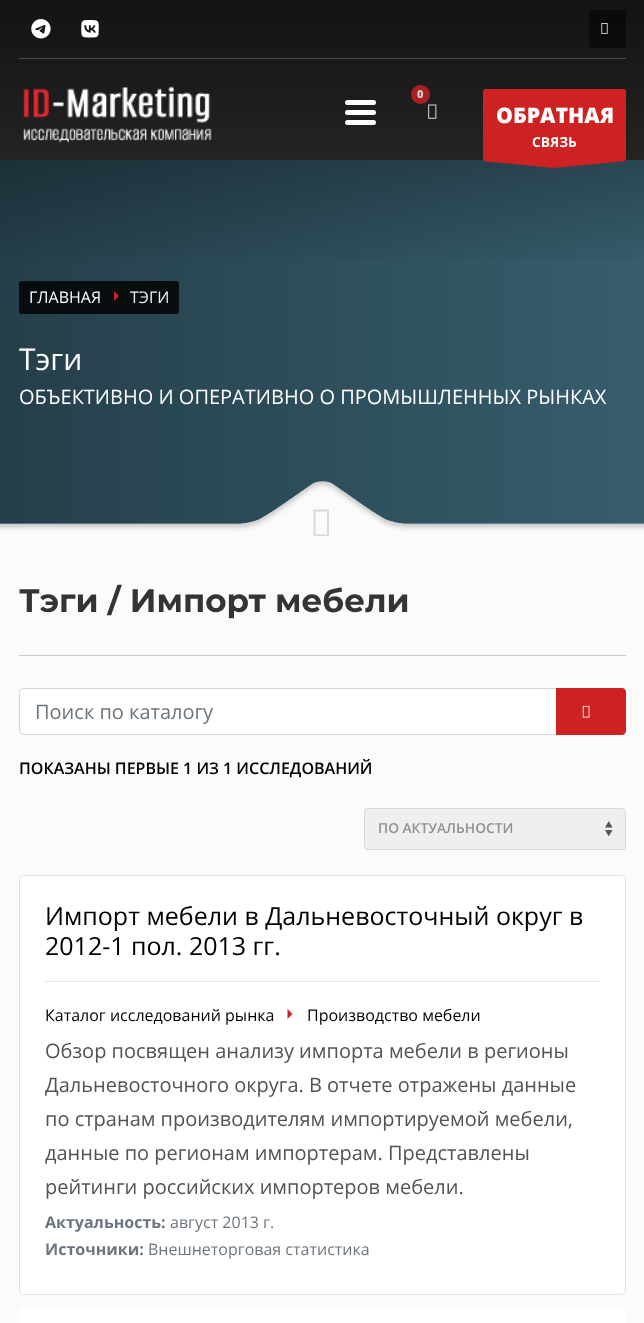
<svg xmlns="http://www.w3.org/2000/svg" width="644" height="1323">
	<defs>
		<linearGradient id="g1" gradientUnits="userSpaceOnUse" x1="0" y1="348" x2="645" y2="348"><stop offset="0" stop-color="#253F4A" /><stop offset="1" stop-color="#375D6D" /></linearGradient>
		<linearGradient id="g2" gradientUnits="userSpaceOnUse" x1="323" y1="0" x2="323" y2="271"><stop offset="0" stop-color="#000000" stop-opacity="0.6" /><stop offset="1" stop-color="#000000" stop-opacity="0" /></linearGradient>
	</defs>
	<rect width="100%" height="100%" fill="#FBFBFB" />
	<rect x="0" y="0" width="644" height="160" fill="#2F2F2F" />
	<rect x="0" y="160" width="644" height="364" fill="url(#g1)" />
	<rect x="0" y="0" width="644" height="259" fill="url(#g2)" />
	<image x="31" y="19" width="20" height="20" href="assets/img1.png" />
	<image x="81" y="20" width="18" height="18" href="assets/img2.png" />
	<rect x="589" y="10" width="37" height="38" rx="2.5" fill="#000000" fill-opacity="0.5" />
	<image x="601" y="23" width="7" height="11" href="assets/img3.png" />
	<rect x="19" y="58" width="607" height="1" fill="#474747" />
	<image x="23" y="86" width="189" height="57" href="assets/img4.png" />
	<rect x="345" y="120" width="31" height="5" rx="2.5" fill="#FFFFFF" />
	<rect x="345" y="110" width="31" height="5" rx="2.5" fill="#FFFFFF" />
	<rect x="345" y="100" width="31" height="5" rx="2.5" fill="#FFFFFF" />
	<circle cx="420.5" cy="94.5" r="9.5" fill="#AA2021" />
	<text x="417" y="98" font-family="Noto Sans" font-size="11" font-weight="900" fill="#D2D2D2">0</text>
	<image x="428" y="104" width="9" height="15" href="assets/img5.png" />
	<rect x="483" y="89" width="143" height="72" rx="2.5" fill="#CD2122" />
	<text x="496" y="123" font-family="Open Sans" font-size="21.25" font-weight="800" fill="#FFFFFF">ОБРАТНАЯ</text>
	<text x="532" y="147" font-family="Open Sans" font-size="13.75" font-weight="700" fill="#FFFFFF">СВЯЗЬ</text>
	<path d="M626 161L554 168L482 161Z" fill="#CD2122" />
	<rect x="19" y="281" width="160" height="33" rx="2.5" fill="#000000" fill-opacity="0.8" />
	<text x="29" y="303" font-family="Open Sans" font-size="16" fill="#FFFFFF">ГЛАВНАЯ</text>
	<path d="M114 301V291L119 296Z" fill="#CD2122" />
	<text x="130" y="303" font-family="Open Sans" font-size="16" fill="#EEEEEE">ТЭГИ</text>
	<text x="19" y="370" font-family="Open Sans" font-size="30" fill="#FFFFFF">Тэги</text>
	<text x="19" y="404" font-family="Open Sans" font-size="20" fill="#FFFFFF">ОБЪЕКТИВНО И ОПЕРАТИВНО О ПРОМЫШЛЕННЫХ РЫНКАХ</text>
	<image x="0" y="481" width="644" height="54" href="assets/img6.png" />
	<path d="M313.5 536V509.5H329V536ZM315.5 534.5H327V511.5H315.5Z" fill="#D9D9D9" />
	<rect x="19" y="655" width="607" height="1" fill="#CBCBCB" />
	<text x="19" y="612" font-family="Montserrat" font-size="32.5" font-weight="700" fill="#343434">Тэги / Импорт мебели</text>
	<path d="M24 689H556V734H24C22 734 20 732 20 730V693C20 691 22 689 24 689Z" fill="#FFFFFF" />
	<path d="M24 688.5H557.5V734.5H24C21.5 734.5 19.5 732.5 19.5 730V693C19.5 690.5 21.5 688.5 24 688.5Z" fill="none" stroke="#CED4DA" />
	<text x="35" y="719" font-family="Open Sans" font-size="20" fill="#6C757D">Поиск по каталогу</text>
	<path d="M556 688H622C624 688 626 690 626 692V731C626 733 624 735 622 735H556Z" fill="#CD2122" />
	<image x="582" y="705" width="8" height="13" href="assets/img7.png" />
	<text x="19" y="774" font-family="Open Sans" font-size="16" font-weight="600" fill="#000000">ПОКАЗАНЫ ПЕРВЫЕ 1 ИЗ 1 ИССЛЕДОВАНИЙ</text>
	<rect x="364" y="808" width="262" height="42" rx="4" fill="#EFEFEF" />
	<image x="605" y="821" width="8" height="15" href="assets/img8.png" />
	<rect x="364.5" y="808.5" width="261" height="41" rx="3.5" fill="none" stroke="#D9D9D9" />
	<text x="378" y="833" font-family="Open Sans" font-size="13.75" font-weight="600" fill="#909090">ПО АКТУАЛЬНОСТИ</text>
	<rect x="19.5" y="875.5" width="606" height="419" rx="4.5" fill="#FFFFFF" stroke="#DEE2E6" />
	<g font-family="Open Sans" font-size="25" fill="#000000">
		<text x="45" y="925">Импорт мебели в Дальневосточный округ в</text>
		<text x="45" y="955">2012-1 пол. 2013 гг.</text>
	</g>
	<rect x="45" y="981" width="555" height="1" fill="#E6E6E6" />
	<text x="45" y="1021" font-family="Open Sans" font-size="16" fill="#000000">Каталог исследований рынка</text>
	<path d="M287.5 1019V1009L292.5 1014Z" fill="#CD2122" />
	<text x="307" y="1021" font-family="Open Sans" font-size="16" fill="#000000">Производство мебели</text>
	<g font-family="Open Sans" font-size="20" fill="#535353">
		<text x="45" y="1058">Обзор посвящен анализу импорта мебели в регионы</text>
		<text x="45" y="1092">Дальневосточного округа. В отчете отражены данные</text>
		<text x="45" y="1126">по странам производителям импортируемой мебели,</text>
		<text x="45" y="1160">данные по регионам импортерам. Представлены</text>
		<text x="45" y="1194">рейтинги российских импортеров мебели.</text>
	</g>
	<text x="45" y="1228" font-family="Open Sans" font-size="16" font-weight="700" fill="#6C757D">Актуальность:</text>
	<text x="170" y="1228" font-family="Open Sans" font-size="16" fill="#6C757D">август 2013 г.</text>
	<text x="45" y="1255" font-family="Open Sans" font-size="16" font-weight="700" fill="#6C757D">Источники:</text>
	<text x="148" y="1255" font-family="Open Sans" font-size="16" fill="#6C757D">Внешнеторговая статистика</text>
	<rect x="19" y="1308" width="607" height="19" rx="4" fill="#FFFFFF" />
</svg>
